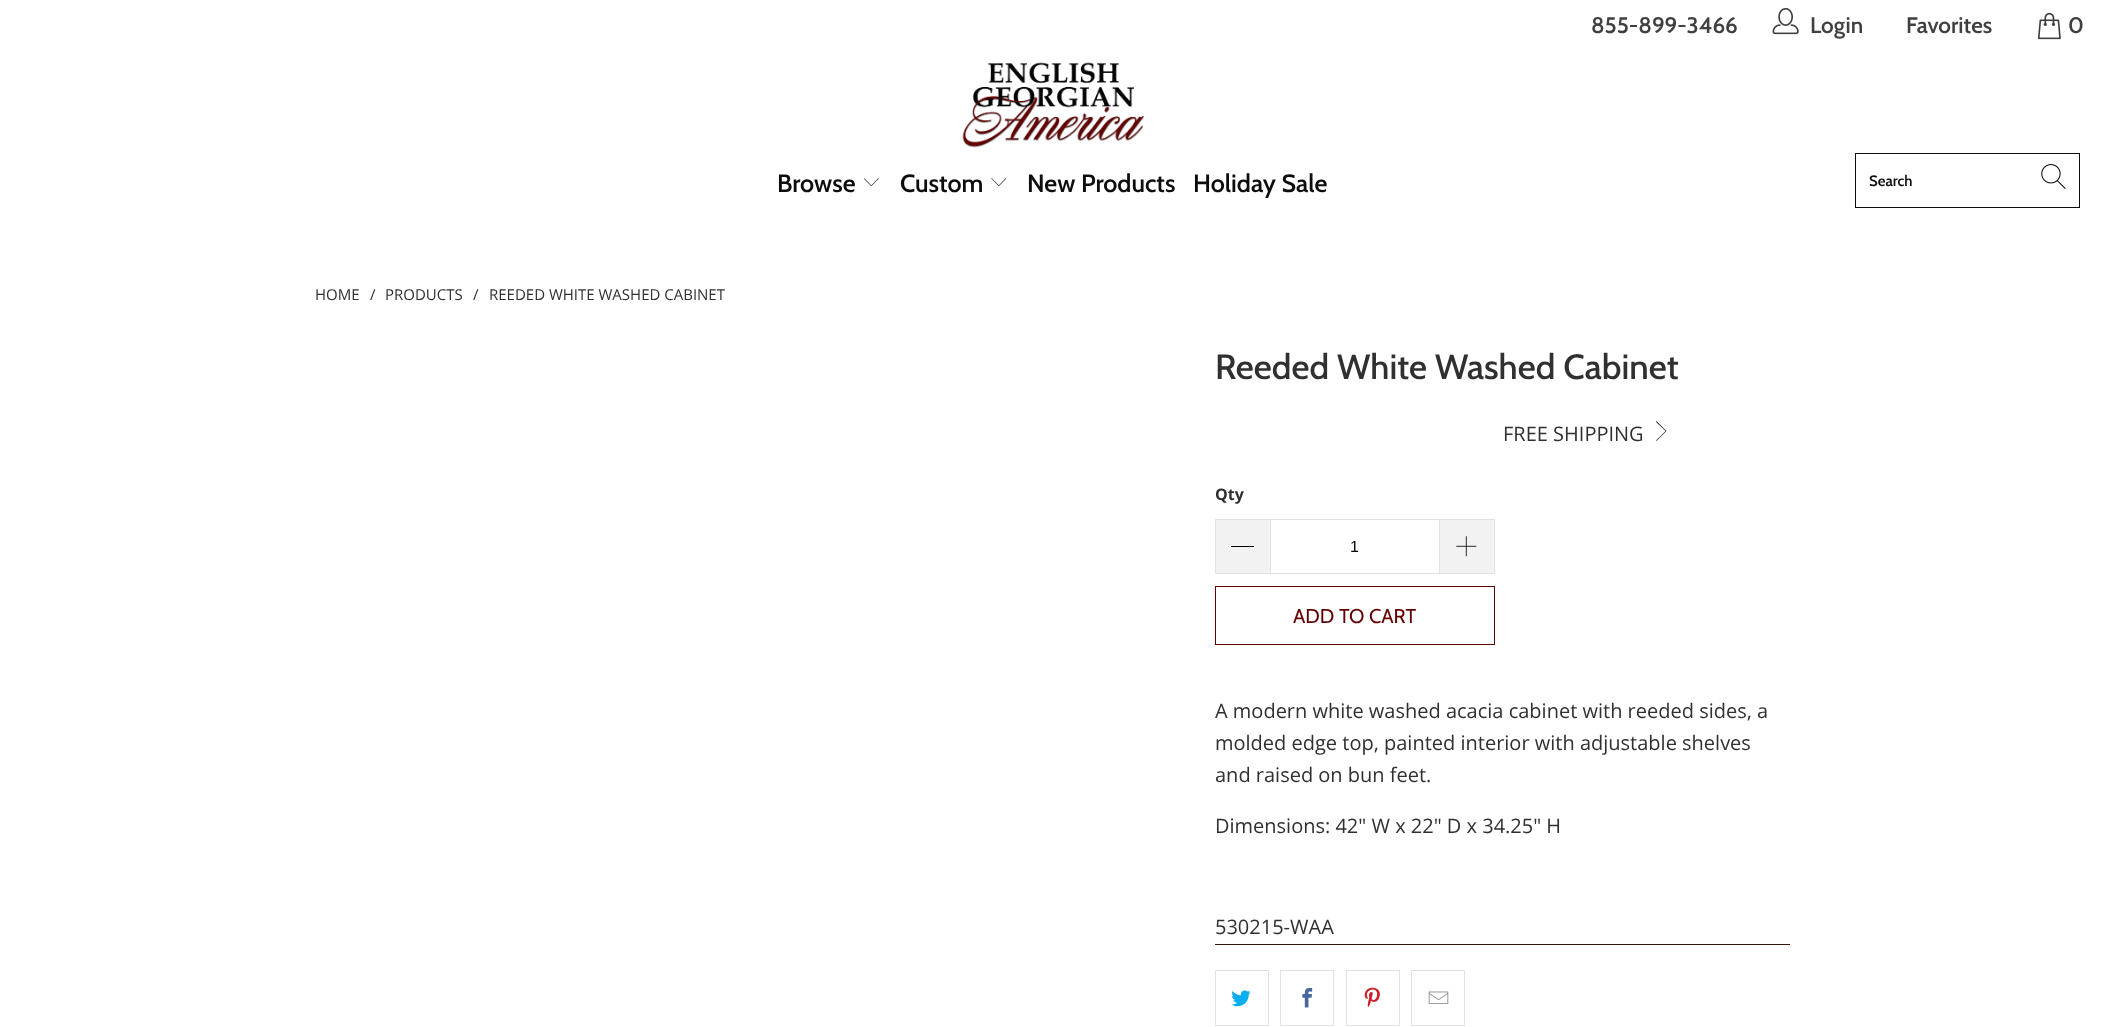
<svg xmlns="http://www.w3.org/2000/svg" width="2105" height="1027">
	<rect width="100%" height="100%" fill="#FFFFFF" />
	<text x="1591" y="33" font-family="Cabin" font-size="22.5" font-weight="600" fill="#404040">855-899-3466</text>
	<image x="1772" y="7" width="27" height="28" href="assets/img1.png" />
	<g font-family="Cabin" font-size="22.5" font-weight="600" fill="#404040">
		<text x="1810" y="33">Login</text>
		<text x="1906" y="33">Favorites</text>
	</g>
	<image x="2037" y="12" width="24" height="28" href="assets/img2.png" />
	<text x="2068" y="33" font-family="Cabin" font-size="22.5" font-weight="600" fill="#404040">0</text>
	<image x="962" y="62" width="182" height="86" href="assets/img3.png" />
	<text x="777" y="192" font-family="Cabin" font-size="25" font-weight="600" fill="#0D0D0D">Browse</text>
	<image x="863" y="178" width="16" height="9" href="assets/img4.png" />
	<text x="900" y="192" font-family="Cabin" font-size="25" font-weight="600" fill="#0D0D0D">Custom</text>
	<image x="991" y="178" width="16" height="9" href="assets/img5.png" />
	<g font-family="Cabin" font-size="25" font-weight="600" fill="#0D0D0D">
		<text x="1027" y="192">New Products</text>
		<text x="1193" y="192">Holiday Sale</text>
	</g>
	<rect x="1855.5" y="153.5" width="224" height="54" fill="none" stroke="#0D0D0D" />
	<text x="1869" y="186" font-family="Cabin" font-size="15" font-weight="600" fill="#0D0D0D">Search</text>
	<image x="2041" y="164" width="25" height="25" href="assets/img6.png" />
	<g font-family="Open Sans" font-size="15" fill="#303030">
		<text x="315" y="300">HOME</text>
		<text x="370" y="300">/</text>
		<text x="385" y="300">PRODUCTS</text>
		<text x="473" y="300">/</text>
		<text x="489" y="300">REEDED WHITE WASHED CABINET</text>
	</g>
	<text x="1215" y="379" font-family="Cabin" font-size="35" font-weight="500" fill="#303030">Reeded White Washed Cabinet</text>
	<text x="1503" y="441" font-family="Open Sans" font-size="20" fill="#303030">FREE SHIPPING</text>
	<path d="M1656.5 441L1656 440.5L1665.5 431L1656 422L1656.5 421L1666.5 431Z" fill="#303030" />
	<text x="1215" y="500" font-family="Open Sans" font-size="16" font-weight="700" fill="#303030">Qty</text>
	<rect x="1216" y="520" width="54" height="53" fill="#F2F2F2" />
	<rect x="1215" y="519" width="55" height="1" fill="#E2E2E2" />
	<rect x="1215" y="573" width="55" height="1" fill="#E2E2E2" />
	<rect x="1215" y="519" width="1" height="55" fill="#E2E2E2" />
	<rect x="1231" y="546" width="23" height="1" fill="#000000" />
	<rect x="1270.5" y="519.5" width="169" height="54" fill="none" stroke="#E2E2E2" />
	<text x="1350" y="552" font-family="Liberation Sans" font-size="16" fill="#000000">1</text>
	<rect x="1440" y="520" width="54" height="53" fill="#F2F2F2" />
	<rect x="1440" y="519" width="55" height="1" fill="#E2E2E2" />
	<rect x="1494" y="519" width="1" height="55" fill="#E2E2E2" />
	<rect x="1440" y="573" width="55" height="1" fill="#E2E2E2" />
	<image x="1456" y="536" width="21" height="21" href="assets/img7.png" />
	<rect x="1215.5" y="586.5" width="279" height="58" fill="none" stroke="#630202" />
	<text x="1293" y="623" font-family="Cabin" font-size="20" fill="#630202">ADD TO CART</text>
	<g font-family="Open Sans" font-size="20" fill="#303030">
		<text x="1215" y="718">A modern white washed acacia cabinet with reeded sides, a</text>
		<text x="1215" y="750">molded edge top, painted interior with adjustable shelves</text>
		<text x="1215" y="782">and raised on bun feet.</text>
		<text x="1215" y="833">Dimensions: 42" W x 22" D x 34.25" H</text>
		<text x="1215" y="934">530215-WAA</text>
	</g>
	<rect x="1215" y="944" width="575" height="1" fill="#3B1212" />
	<rect x="1215.5" y="970.5" width="53" height="55" fill="none" stroke="#E2E2E2" />
	<image x="1231" y="990" width="20" height="17" href="assets/img8.png" />
	<rect x="1280.5" y="970.5" width="53" height="55" fill="none" stroke="#E2E2E2" />
	<image x="1302" y="988" width="11" height="20" href="assets/img9.png" />
	<rect x="1346.5" y="970.5" width="53" height="55" fill="none" stroke="#E2E2E2" />
	<image x="1364" y="987" width="16" height="20" href="assets/img10.png" />
	<rect x="1411.5" y="970.5" width="53" height="55" fill="none" stroke="#E2E2E2" />
	<image x="1428" y="991" width="21" height="13" href="assets/img11.png" />
</svg>
